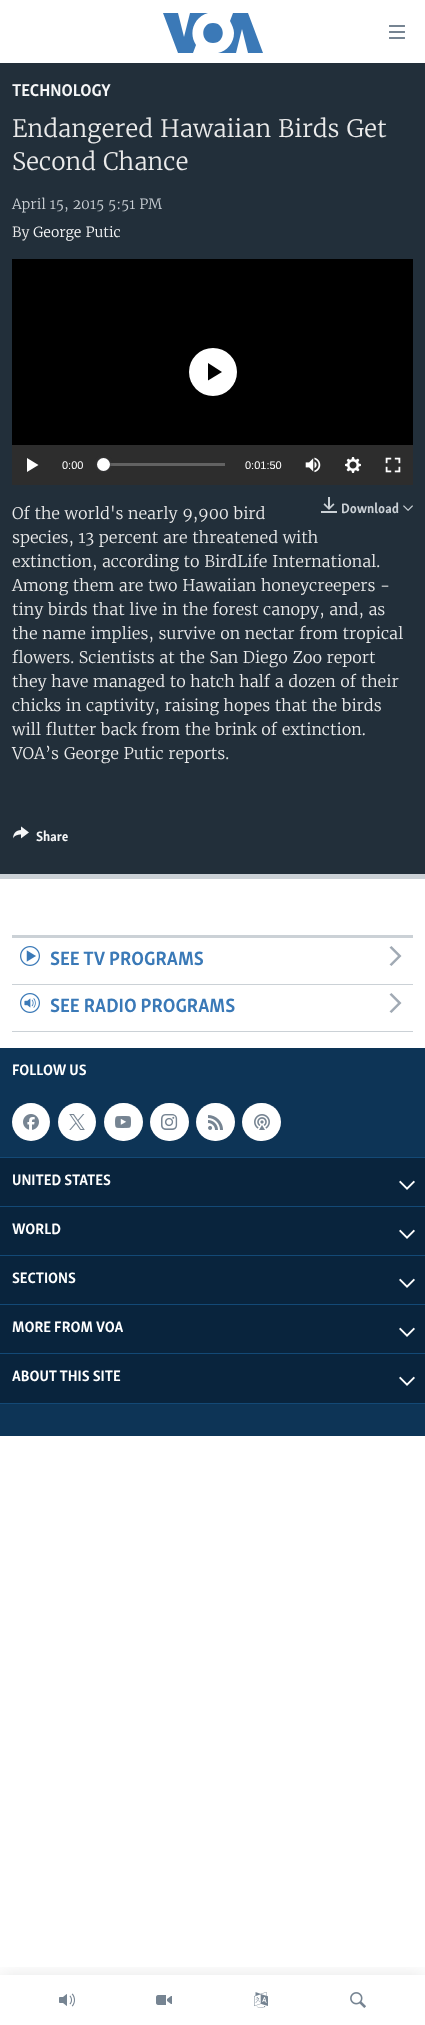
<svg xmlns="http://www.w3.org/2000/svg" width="425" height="2025">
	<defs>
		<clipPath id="clip1"><rect x="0" y="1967" width="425" height="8" /></clipPath>
	</defs>
	<rect width="100%" height="100%" fill="#FFFFFF" />
	<path d="M196 45L193 53H178L163 13H178L184 37L190 13H208C194 17 188 33 196 45ZM213 23C200 23 200 43 213 43C226 43 226 23 213 23ZM234 33C234 43 227 51 218 53H236L242 29L248 53H263L248 13H233L230 21C232 25 234 29 234 33Z" fill="#3B79B7" />
	<image x="389" y="25" width="16" height="14" href="assets/img1.png" />
	<g clip-path="url(#clip1)">
		<rect x="0" y="1975" width="425" height="50" fill="#000000" fill-opacity="0.1" filter="blur(10px)" />
	</g>
	<image x="59" y="1993" width="16" height="14" href="assets/img2.png" />
	<image x="156" y="1995" width="16" height="10" href="assets/img3.png" />
	<image x="254" y="1992" width="14" height="16" href="assets/img4.png" />
	<image x="350" y="1992" width="16" height="16" href="assets/img5.png" />
	<rect x="0" y="63" width="425" height="811" fill="#222F3A" />
	<rect x="0" y="874" width="425" height="5" fill="#CBD1D6" />
	<text x="12" y="96" font-family="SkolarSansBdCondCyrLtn" font-size="17.5" font-weight="700" fill="#F6F7F8">TECHNOLOGY</text>
	<g font-family="Merriweather" font-size="24" font-weight="300" fill="#EBEBEB">
		<text x="12" y="137">Endangered Hawaiian Birds Get</text>
		<text x="12" y="170">Second Chance</text>
	</g>
	<text x="12" y="209" font-family="Merriweather" font-size="14" font-weight="300" fill="#CBD1D6">April 15, 2015 5:51 PM</text>
	<text x="12" y="237" font-family="Merriweather" font-size="14" font-weight="300" fill="#EBEBEB">By</text>
	<text x="33" y="237" font-family="Merriweather" font-size="14" font-weight="300" fill="#F6F7F8">George Putic</text>
	<rect x="12" y="259" width="401" height="186" fill="#000000" />
	<circle cx="213" cy="372" r="24" fill="#FFFFFF" />
	<path d="M208 380.5L222 372L208 363Z" fill="#000000" />
	<rect x="12" y="445" width="401" height="40" fill="#2D2D2D" />
	<path d="M27 472L38.5 465L27 458Z" fill="#FFFFFF" />
	<text x="62" y="469" font-family="Liberation Sans" font-size="11" fill="#FFFFFF">0:00</text>
	<rect x="103" y="463" width="122" height="3" fill="#626262" />
	<rect x="97" y="458" width="13" height="13" rx="6.5" fill="#414144" filter="blur(1.5px)" />
	<circle cx="103.5" cy="464.5" r="6.5" fill="#FFFFFF" />
	<text x="245" y="469" font-family="Liberation Sans" font-size="11" fill="#FFFFFF">0:01:50</text>
	<image x="305" y="457" width="16" height="16" href="assets/img6.png" />
	<image x="345" y="457" width="16" height="16" href="assets/img7.png" />
	<image x="385" y="457" width="16" height="16" href="assets/img8.png" />
	<image x="321" y="497" width="16" height="16" href="assets/img9.png" />
	<text x="341" y="513" font-family="SkolarSansBdCondCyrLtn" font-size="14" font-weight="700" fill="#CBD1D6">Download</text>
	<image x="403" y="505" width="10" height="6" href="assets/img10.png" />
	<g font-family="Merriweather" font-size="16" font-weight="300" fill="#EBEBEB">
		<text x="12" y="519">Of the world's nearly 9,900 bird</text>
		<text x="12" y="543">species, 13 percent are threatened with</text>
		<text x="12" y="567">extinction, according to BirdLife International.</text>
		<text x="12" y="591">Among them are two Hawaiian honeycreepers -</text>
		<text x="12" y="615">tiny birds that live in the forest canopy, and, as</text>
		<text x="12" y="639">the name implies, survive on nectar from tropical</text>
		<text x="12" y="663">flowers. Scientists at the San Diego Zoo report</text>
		<text x="12" y="687">they have managed to hatch half a dozen of their</text>
		<text x="12" y="711">chicks in captivity, raising hopes that the birds</text>
		<text x="12" y="735">will flutter back from the brink of extinction.</text>
		<text x="12" y="759">VOA’s George Putic reports.</text>
	</g>
	<image x="13" y="826" width="16" height="13" href="assets/img11.png" />
	<text x="36" y="841" font-family="SkolarSansBdCondCyrLtn" font-size="14" font-weight="700" fill="#F6F7F8">Share</text>
	<rect x="12" y="935" width="401" height="3" fill="#CBD1D6" />
	<rect x="12" y="984" width="401" height="1" fill="#CBD1D6" />
	<image x="20" y="946" width="20" height="20" href="assets/img12.png" />
	<text x="50" y="965" font-family="SkolarSansBdCondCyrLtn" font-size="19.75" font-weight="700" fill="#3A79B7">SEE TV PROGRAMS</text>
	<path d="M391.5 966L401.5 956L391.5 946L389.5 947.5L398 956L389.5 964.5Z" fill="#A1AAB4" />
	<rect x="12" y="1031" width="401" height="1" fill="#CBD1D6" />
	<image x="20" y="993" width="20" height="20" href="assets/img13.png" />
	<text x="50" y="1012" font-family="SkolarSansBdCondCyrLtn" font-size="19.75" font-weight="700" fill="#3A79B7">SEE RADIO PROGRAMS</text>
	<path d="M391.5 1013L401.5 1003L391.5 993L389.5 994.5L398 1003L389.5 1011.5Z" fill="#A1AAB4" />
	<rect x="0" y="1048" width="425" height="388" fill="#0D3456" />
	<rect x="0" y="1403" width="425" height="1" fill="#134976" />
	<text x="12" y="1075" font-family="SkolarSansBdCondCyrLtn" font-size="15.5" font-weight="700" fill="#FFFFFF">FOLLOW US</text>
	<circle cx="31" cy="1122" r="19" fill="#FFFFFF" />
	<image x="23" y="1114" width="16" height="16" href="assets/img14.png" />
	<circle cx="77" cy="1122" r="19" fill="#FFFFFF" />
	<image x="69" y="1114" width="16" height="16" href="assets/img15.png" />
	<rect x="104" y="1103" width="39" height="38" rx="19" fill="#FFFFFF" />
	<image x="115" y="1116" width="16" height="12" href="assets/img16.png" />
	<rect x="150" y="1103" width="39" height="38" rx="19" fill="#FFFFFF" />
	<image x="161" y="1114" width="17" height="16" href="assets/img17.png" />
	<rect x="196" y="1103" width="39" height="38" rx="19" fill="#FFFFFF" />
	<image x="208" y="1115" width="15" height="15" href="assets/img18.png" />
	<rect x="242" y="1103" width="39" height="38" rx="19" fill="#FFFFFF" />
	<image x="254" y="1114" width="16" height="16" href="assets/img19.png" />
	<rect x="0" y="1157" width="425" height="1" fill="#134976" />
	<rect x="0" y="1158" width="425" height="48" fill="#09243D" />
	<text x="12" y="1185" font-family="SkolarSansBdCondCyrLtn" font-size="15.5" font-weight="700" fill="#FFFFFF">UNITED STATES</text>
	<image x="399" y="1180" width="16" height="10" href="assets/img20.png" />
	<rect x="0" y="1206" width="425" height="1" fill="#134976" />
	<rect x="0" y="1207" width="425" height="48" fill="#09243D" />
	<text x="12" y="1234" font-family="SkolarSansBdCondCyrLtn" font-size="15.5" font-weight="700" fill="#FFFFFF">WORLD</text>
	<image x="399" y="1229" width="16" height="10" href="assets/img20.png" />
	<rect x="0" y="1255" width="425" height="1" fill="#134976" />
	<rect x="0" y="1256" width="425" height="48" fill="#09243D" />
	<text x="12" y="1283" font-family="SkolarSansBdCondCyrLtn" font-size="15.5" font-weight="700" fill="#FFFFFF">SECTIONS</text>
	<image x="399" y="1278" width="16" height="10" href="assets/img20.png" />
	<rect x="0" y="1304" width="425" height="1" fill="#134976" />
	<rect x="0" y="1305" width="425" height="48" fill="#09243D" />
	<text x="12" y="1332" font-family="SkolarSansBdCondCyrLtn" font-size="15.5" font-weight="700" fill="#FFFFFF">MORE FROM VOA</text>
	<image x="399" y="1327" width="16" height="10" href="assets/img20.png" />
	<rect x="0" y="1353" width="425" height="1" fill="#134976" />
	<rect x="0" y="1354" width="425" height="49" fill="#09243D" />
	<text x="12" y="1381" font-family="SkolarSansBdCondCyrLtn" font-size="15.5" font-weight="700" fill="#FFFFFF">ABOUT THIS SITE</text>
	<image x="399" y="1376" width="16" height="10" href="assets/img20.png" />
</svg>
